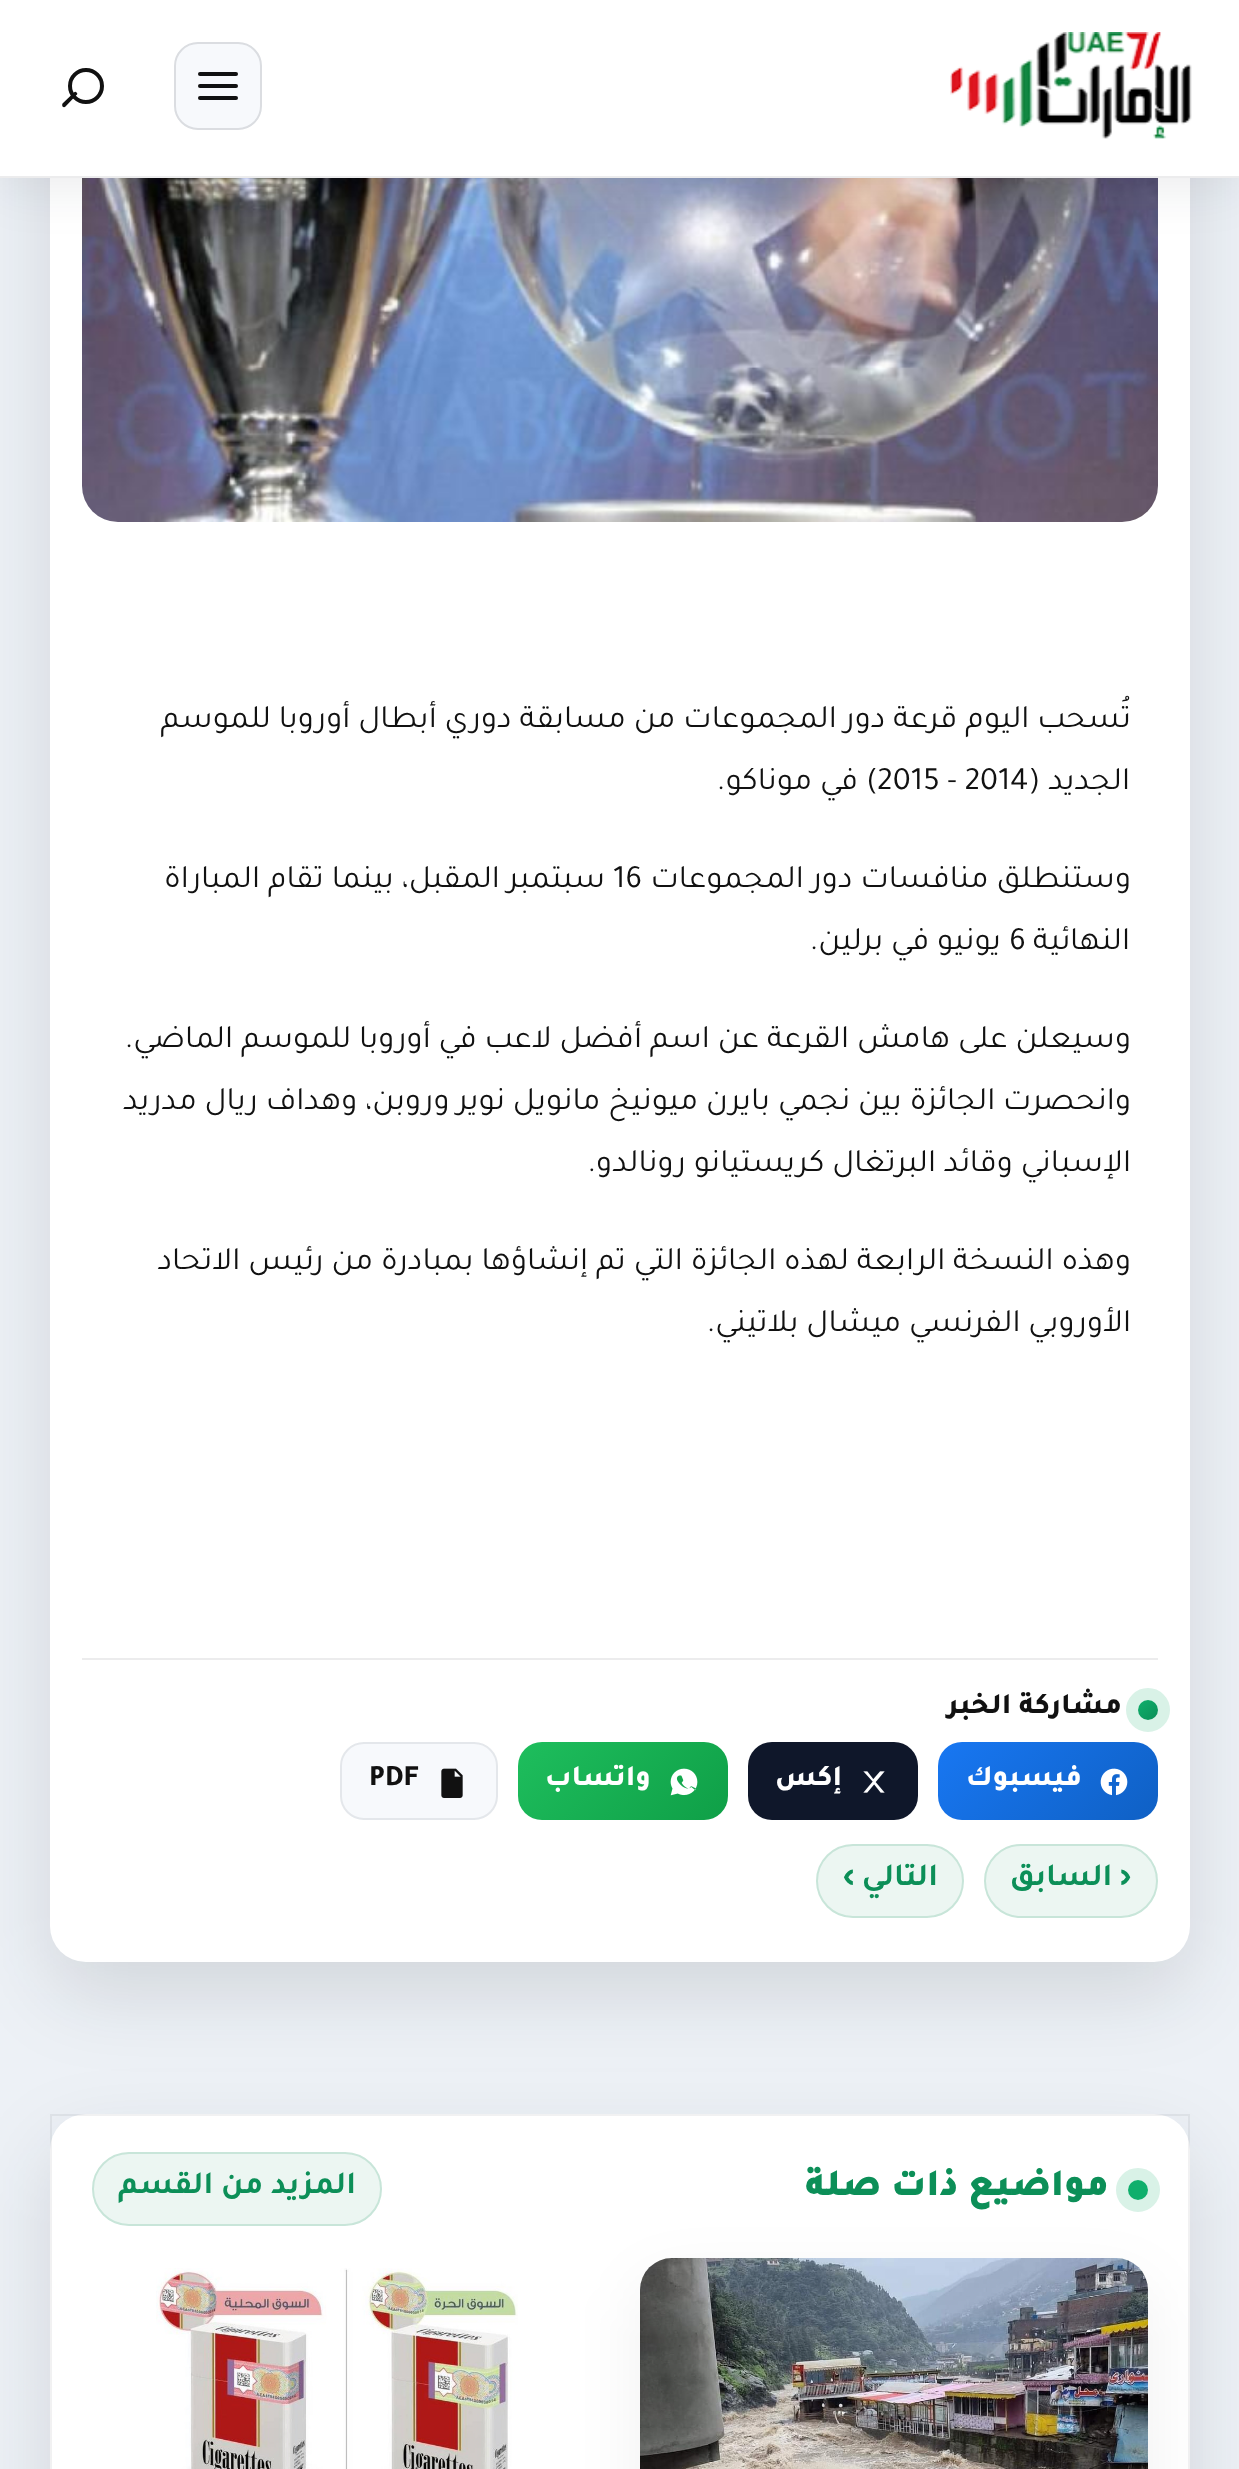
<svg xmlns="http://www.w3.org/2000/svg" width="1239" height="2469">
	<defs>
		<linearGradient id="g1" gradientUnits="userSpaceOnUse" x1="1138" y1="1700" x2="1158" y2="1720"><stop offset="0" stop-color="#0FAF6C" /><stop offset="1" stop-color="#0C8F58" /></linearGradient>
		<linearGradient id="g2" gradientUnits="userSpaceOnUse" x1="974" y1="1707" x2="1123" y2="1856"><stop offset="0" stop-color="#1877F2" /><stop offset="1" stop-color="#0F60C4" /></linearGradient>
		<linearGradient id="g3" gradientUnits="userSpaceOnUse" x1="551" y1="1709" x2="695" y2="1853"><stop offset="0" stop-color="#1EBE5D" /><stop offset="1" stop-color="#0F9F47" /></linearGradient>
	</defs>
	<rect width="100%" height="100%" fill="#EDF1F6" />
	<rect x="50" y="-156" width="1140" height="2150" rx="36" fill="#111722" fill-opacity="0.12" filter="blur(40px)" />
	<rect x="50" y="-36" width="1140" height="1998" rx="36" fill="#FFFFFF" />
	<image x="82" y="178" width="1076" height="344" href="assets/img2.png" />
	<rect x="0" y="12" width="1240" height="178" fill="#111722" fill-opacity="0.08" filter="blur(24px)" />
	<rect x="0" y="0" width="1239" height="176" fill="#FFFFFF" />
	<rect x="0" y="176" width="1239" height="2" fill="#ECECED" />
	<image x="950" y="32" width="242" height="107" href="assets/img1.png" />
	<rect x="174" y="42" width="88" height="88" rx="24" fill="#F7F9FC" />
	<rect x="175" y="43" width="86" height="86" rx="23" fill="none" stroke="#111722" stroke-opacity="0.12" stroke-width="2" />
	<rect x="198" y="84" width="40" height="4" rx="2" fill="#111111" />
	<rect x="198" y="72" width="40" height="4" rx="2" fill="#111111" />
	<rect x="198" y="96" width="40" height="4" rx="2" fill="#111111" />
	<circle cx="86" cy="86" r="16" fill="none" stroke="#111111" stroke-width="4" />
	<path d="M62.5 103.5L74 92.5C74.5 91.5 76 91.5 76.5 92.5C77.5 93 77.5 94.5 76.5 95L65.5 106.5C64.5 107.5 63.5 107.5 62.5 106.5C62 105.5 62 104.5 62.5 103.5Z" fill="#111111" />
	<g font-family="Tajawal" font-size="32.65" direction="rtl" fill="#111111">
		<text x="1131" y="727">تُسحب اليوم قرعة دور المجموعات من مسابقة دوري أبطال أوروبا للموسم</text>
		<text x="1130" y="789">الجديد (</text>
	</g>
	<text x="877" y="789" font-family="Tajawal" font-size="32.65" fill="#111111">2015 - 2014</text>
	<g font-family="Tajawal" font-size="32.65" direction="rtl" fill="#111111">
		<text x="878" y="789">) في موناكو.</text>
		<text x="1131" y="887">وستنطلق منافسات دور المجموعات</text>
	</g>
	<text x="613" y="887" font-family="Tajawal" font-size="32.65" fill="#111111">16</text>
	<g font-family="Tajawal" font-size="32.65" direction="rtl" fill="#111111">
		<text x="605" y="887">سبتمبر المقبل، بينما تقام المباراة</text>
		<text x="1130" y="949">النهائية</text>
	</g>
	<text x="1009" y="949" font-family="Tajawal" font-size="32.65" fill="#111111">6</text>
	<g font-family="Tajawal" font-size="32.65" direction="rtl" fill="#111111">
		<text x="1001" y="949">يونيو في برلين.</text>
		<text x="1131" y="1047">وسيعلن على هامش القرعة عن اسم أفضل لاعب في أوروبا للموسم الماضي.</text>
		<text x="1131" y="1109">وانحصرت الجائزة بين نجمي بايرن ميونيخ مانويل نوير وروبن، وهداف ريال مدريد</text>
		<text x="1131" y="1171">الإسباني وقائد البرتغال كريستيانو رونالدو.</text>
		<text x="1131" y="1269">وهذه النسخة الرابعة لهذه الجائزة التي تم إنشاؤها بمبادرة من رئيس الاتحاد</text>
		<text x="1131" y="1331">الأوروبي الفرنسي ميشال بلاتيني.</text>
	</g>
	<rect x="82" y="1658" width="1076" height="2" fill="#ECECED" />
	<circle cx="1148" cy="1710" r="16" fill="none" stroke="#D9F2E7" stroke-width="12" />
	<circle cx="1148" cy="1710" r="10" fill="url(#g1)" />
	<text x="1122" y="1713" font-family="Tajawal" font-size="29.5" font-weight="800" direction="rtl" fill="#111111">مشاركة الخبر</text>
	<rect x="938" y="1742" width="220" height="78" rx="24" fill="url(#g2)" />
	<image x="1100" y="1768" width="28" height="28" href="assets/img3.png" />
	<text x="1082" y="1785" font-family="Tajawal" font-size="29.5" font-weight="800" direction="rtl" fill="#FFFFFF">فيسبوك</text>
	<rect x="748" y="1742" width="170" height="78" rx="24" fill="#0F172A" />
	<image x="863" y="1771" width="22" height="22" href="assets/img4.png" />
	<text x="842" y="1785" font-family="Tajawal" font-size="29.5" font-weight="800" direction="rtl" fill="#FFFFFF">إكس</text>
	<rect x="518" y="1742" width="210" height="78" rx="24" fill="url(#g3)" />
	<image x="670" y="1768" width="28" height="28" href="assets/img5.png" />
	<text x="651" y="1785" font-family="Tajawal" font-size="29.5" font-weight="800" direction="rtl" fill="#FFFFFF">واتساب</text>
	<rect x="340" y="1742" width="158" height="78" rx="24" fill="#F7F9FC" />
	<rect x="341" y="1743" width="156" height="76" rx="23" fill="none" stroke="#111722" stroke-opacity="0.08" stroke-width="2" />
	<image x="441" y="1768" width="22" height="30" href="assets/img6.png" />
	<text x="369" y="1785" font-family="Tajawal" font-size="29.5" font-weight="800" fill="#111111">PDF</text>
	<rect x="984" y="1844" width="174" height="74" rx="37" fill="#ECF6F2" />
	<rect x="985" y="1845" width="172" height="72" rx="36" fill="none" stroke="#0C8F58" stroke-opacity="0.16" stroke-width="2" />
	<text x="1132" y="1885" font-family="Tajawal" font-size="32" font-weight="700" direction="rtl" fill="#0C8F58">‹ السابق</text>
	<rect x="816" y="1844" width="148" height="74" rx="37" fill="#ECF6F2" />
	<rect x="817" y="1845" width="146" height="72" rx="36" fill="none" stroke="#0C8F58" stroke-opacity="0.16" stroke-width="2" />
	<text x="938" y="1885" font-family="Tajawal" font-size="32" font-weight="700" direction="rtl" fill="#0C8F58">التالي ›</text>
	<rect x="50" y="2146" width="1140" height="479" rx="36" fill="#111722" fill-opacity="0.12" filter="blur(40px)" />
	<rect x="50" y="2114" width="1140" height="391" rx="36" fill="#FFFFFF" />
	<rect x="51" y="2115" width="1138" height="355" fill="none" stroke="#111722" stroke-opacity="0.06" stroke-width="2" />
	<circle cx="1138" cy="2190" r="16" fill="none" stroke="#D9F2E7" stroke-width="12" />
	<circle cx="1138" cy="2190" r="10" fill="#0FAF6C" />
	<text x="1109" y="2195" font-family="Tajawal" font-size="38.5" font-weight="900" direction="rtl" fill="#0C8F58">مواضيع ذات صلة</text>
	<rect x="92" y="2152" width="290" height="74" rx="37" fill="#ECF6F2" />
	<rect x="93" y="2153" width="288" height="72" rx="36" fill="none" stroke="#0C8F58" stroke-opacity="0.16" stroke-width="2" />
	<text x="356" y="2193" font-family="Tajawal" font-size="32" font-weight="700" direction="rtl" fill="#0C8F58">المزيد من القسم</text>
	<rect x="640" y="2282" width="508" height="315" rx="32" fill="#111111" fill-opacity="0.06" filter="blur(32px)" />
	<image x="640" y="2258" width="508" height="211" href="assets/img7.png" />
	<image x="156" y="2268" width="362" height="201" href="assets/img8.png" />
</svg>
